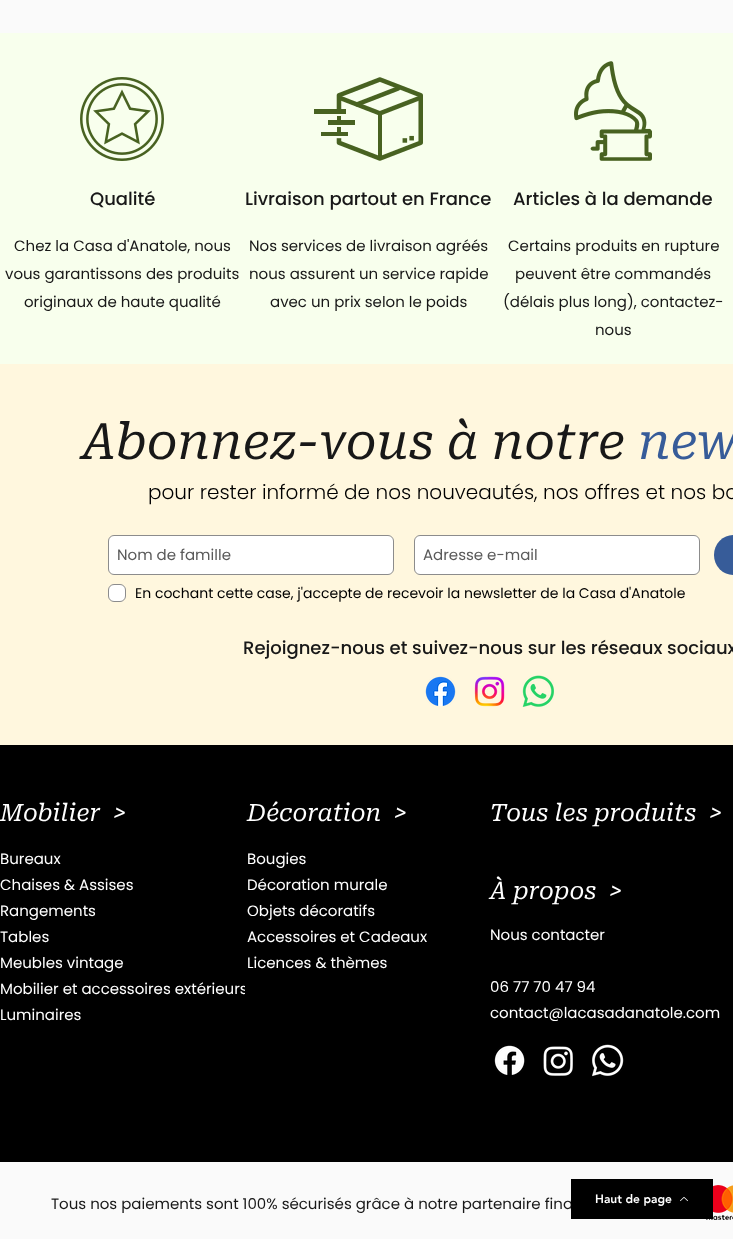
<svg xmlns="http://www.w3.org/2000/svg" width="733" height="1239">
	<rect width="100%" height="100%" fill="#FAFAFA" />
	<rect x="0" y="33" width="733" height="331" fill="#F8FFED" />
	<image x="80" y="77" width="84" height="84" href="assets/img1.png" />
	<text x="90" y="205" font-family="Poppins" font-size="18" font-weight="500" fill="#181818">Qualité</text>
	<g font-family="Poppins" font-size="15" fill="#181818">
		<text x="14" y="251">Chez la Casa d'Anatole, nous</text>
		<text x="5" y="279">vous garantissons des produits</text>
		<text x="24" y="307">originaux de haute qualité</text>
	</g>
	<image x="314" y="77" width="109" height="84" href="assets/img2.png" />
	<text x="245" y="205" font-family="Poppins" font-size="18" font-weight="500" fill="#181818">Livraison partout en France</text>
	<g font-family="Poppins" font-size="15" fill="#181818">
		<text x="249" y="251">Nos services de livraison agréés</text>
		<text x="249" y="279">nous assurent un service rapide</text>
		<text x="270" y="307">avec un prix selon le poids</text>
	</g>
	<image x="574" y="61" width="78" height="100" href="assets/img3.png" />
	<text x="513" y="205" font-family="Poppins" font-size="18" font-weight="500" fill="#181818">Articles à la demande</text>
	<g font-family="Poppins" font-size="15" fill="#181818">
		<text x="508" y="251">Certains produits en rupture</text>
		<text x="515" y="279">peuvent être commandés</text>
		<text x="503" y="307">(délais plus long), contactez-</text>
		<text x="595" y="335">nous</text>
	</g>
	<rect x="0" y="364" width="733" height="381" fill="#FFF7DE" />
	<text x="82" y="459" font-family="Roboto Serif" font-size="50" font-style="italic" fill="#181818">Abonnez-vous à notre</text>
	<text x="638" y="459" font-family="Roboto Serif" font-size="50" font-style="italic" fill="#375C99">new</text>
	<text x="148" y="499" font-family="Poppins" font-size="20" font-weight="300" fill="#000000">pour rester informé de nos nouveautés, nos offres et nos bo</text>
	<rect x="108.5" y="535.5" width="285" height="39" rx="5.5" fill="#FFFFFF" stroke="#8C8C8C" />
	<text x="117" y="560" font-family="Poppins" font-size="15" fill="#5A5A5A">Nom de famille</text>
	<rect x="414.5" y="535.5" width="285" height="39" rx="5.5" fill="#FFFFFF" stroke="#8C8C8C" />
	<text x="423" y="560" font-family="Poppins" font-size="15" fill="#5A5A5A">Adresse e-mail</text>
	<rect x="714" y="535" width="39" height="40" rx="20" fill="#375C99" />
	<rect x="108.5" y="584.5" width="17" height="17" rx="5.5" fill="#FFFFFF" stroke="#8C8C8C" />
	<text x="135" y="598" font-family="Poppins" font-size="14" fill="#000000">En cochant cette case, j'accepte de recevoir la newsletter de la Casa d'Anatole</text>
	<text x="243" y="654" font-family="Poppins" font-size="18" font-weight="500" fill="#181818">Rejoignez-nous et suivez-nous sur les réseaux sociaux</text>
	<image x="425" y="676" width="31" height="31" href="assets/img4.png" />
	<image x="474" y="676" width="31" height="31" href="assets/img5.png" />
	<image x="522" y="675" width="32" height="32" href="assets/img6.png" />
	<rect x="0" y="745" width="733" height="417" fill="#000000" />
	<text x="0" y="821" font-family="Roboto Serif" font-size="24" font-style="italic" fill="#FFFFFF" xml:space="preserve">Mobilier  &gt;</text>
	<g font-family="Poppins" font-size="15" fill="#FFFFFF">
		<text x="0" y="864">Bureaux</text>
		<text x="0" y="890">Chaises &amp; Assises</text>
		<text x="0" y="916">Rangements</text>
		<text x="0" y="942">Tables</text>
		<text x="0" y="968">Meubles vintage</text>
		<text x="0" y="994">Mobilier et accessoires extérieurs</text>
		<text x="0" y="1020">Luminaires</text>
	</g>
	<text x="247" y="821" font-family="Roboto Serif" font-size="24" font-style="italic" fill="#FFFFFF" xml:space="preserve">Décoration  &gt;</text>
	<g font-family="Poppins" font-size="15" fill="#FFFFFF">
		<text x="247" y="864">Bougies</text>
		<text x="247" y="890">Décoration murale</text>
		<text x="247" y="916">Objets décoratifs</text>
		<text x="247" y="942">Accessoires et Cadeaux</text>
		<text x="247" y="968">Licences &amp; thèmes</text>
	</g>
	<rect x="245" y="985" width="2" height="9" fill="#000000" />
	<g font-family="Roboto Serif" font-size="24" font-style="italic" fill="#FFFFFF">
		<text x="490" y="821" xml:space="preserve">Tous les produits  &gt;</text>
		<text x="490" y="899" xml:space="preserve">À propos  &gt;</text>
	</g>
	<g font-family="Poppins" font-size="15" fill="#FFFFFF">
		<text x="490" y="940">Nous contacter</text>
		<text x="490" y="992">06 77 70 47 94</text>
		<text x="490" y="1018">contact@lacasadanatole.com</text>
	</g>
	<image x="494" y="1045" width="31" height="30" href="assets/img7.png" />
	<image x="543" y="1046" width="30" height="30" href="assets/img8.png" />
	<image x="592" y="1044" width="32" height="33" href="assets/img9.png" />
	<text x="51" y="1209" font-family="Poppins" font-size="15" fill="#181818">Tous nos paiements sont 100% sécurisés grâce à notre partenaire fina</text>
	<image x="706" y="1185" width="27" height="35" href="assets/img10.png" />
	<rect x="571" y="1179" width="142" height="40" fill="#000000" />
	<text x="595" y="1203" font-family="'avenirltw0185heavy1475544'" font-size="12" font-weight="900" fill="#FFFFFF">Haut de page</text>
	<image x="680" y="1197" width="8" height="5" href="assets/img11.png" />
</svg>
